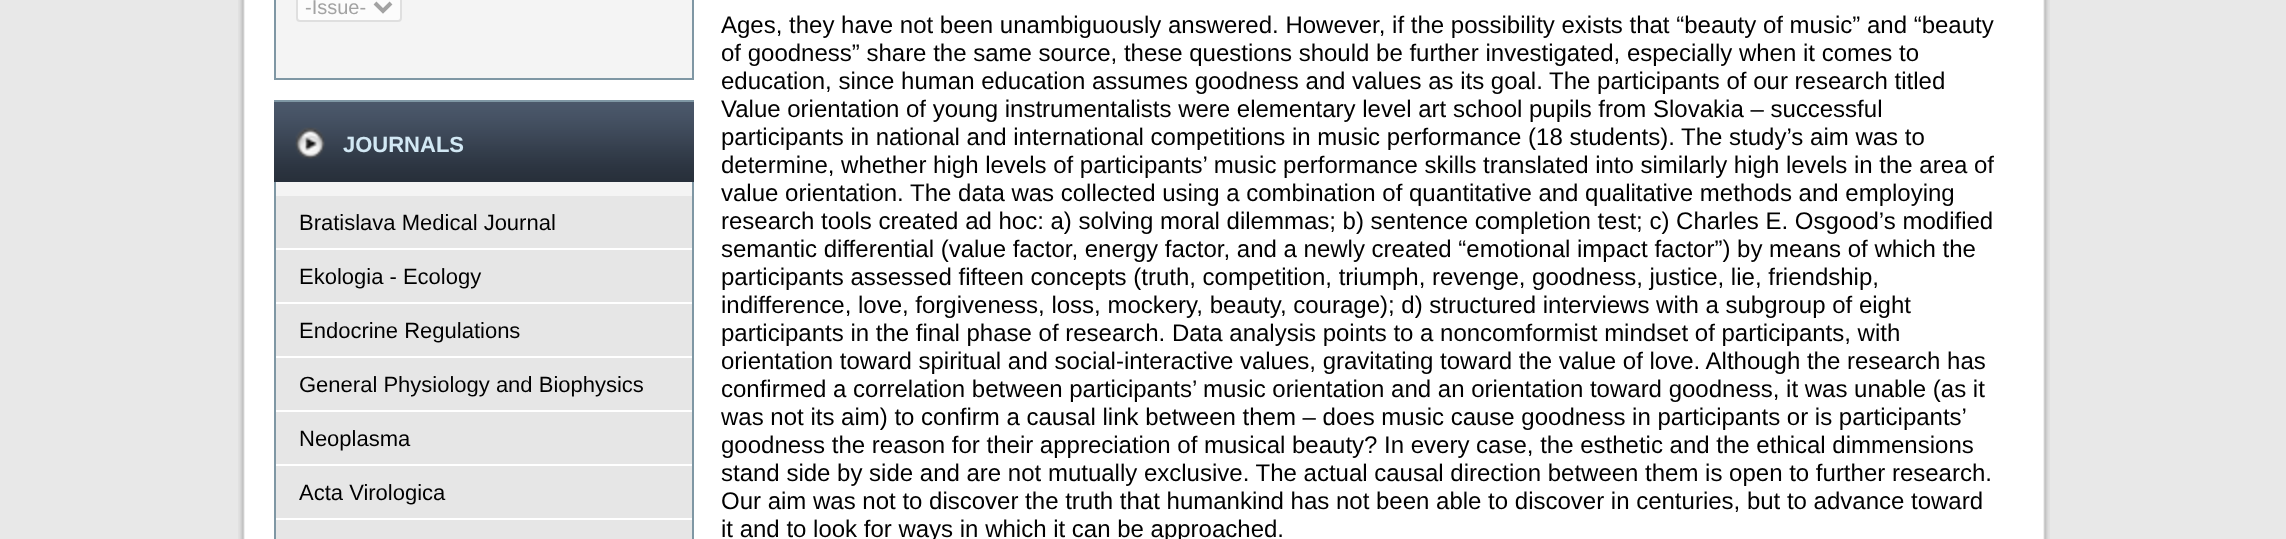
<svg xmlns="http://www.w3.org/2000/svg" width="2286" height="539">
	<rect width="100%" height="100%" fill="#E8E8E8" />
	<image x="238" y="0" width="1812" height="539" href="assets/img1.png" />
	<rect x="275" y="-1" width="418" height="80" fill="#F4F4F4" stroke="#7F97A4" stroke-width="2" />
	<rect x="296" y="-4" width="106" height="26" rx="4" fill="#FCFCFC" />
	<rect x="297" y="-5" width="104" height="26" rx="3" fill="none" stroke="#9C9C9C" stroke-opacity="0.3" stroke-width="2" />
	<path d="M375 3L383 11L391 3" fill="none" stroke="#A3A3A3" stroke-width="4" />
	<text x="305" y="14" font-family="Liberation Sans" font-size="20" fill="#A3A3A3">-Issue-</text>
	<rect x="276" y="182" width="416" height="14" fill="#F4F4F4" />
	<rect x="275" y="101" width="418" height="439" fill="none" stroke="#7F97A4" stroke-width="2" />
	<image x="274" y="102" width="420" height="80" href="assets/img2.png" />
	<text x="343" y="152" font-family="Liberation Sans" font-size="22" font-weight="700" fill="#D2E8F4">JOURNALS</text>
	<rect x="276" y="196" width="416" height="52" fill="#E6E6E6" />
	<text x="299" y="230" font-family="Liberation Sans" font-size="22" fill="#000000">Bratislava Medical Journal</text>
	<rect x="276" y="250" width="416" height="52" fill="#E6E6E6" />
	<text x="299" y="284" font-family="Liberation Sans" font-size="22" fill="#000000">Ekologia - Ecology</text>
	<rect x="276" y="304" width="416" height="52" fill="#E6E6E6" />
	<text x="299" y="338" font-family="Liberation Sans" font-size="22" fill="#000000">Endocrine Regulations</text>
	<rect x="276" y="358" width="416" height="52" fill="#E6E6E6" />
	<text x="299" y="392" font-family="Liberation Sans" font-size="22" fill="#000000">General Physiology and Biophysics</text>
	<rect x="276" y="412" width="416" height="52" fill="#E6E6E6" />
	<text x="299" y="446" font-family="Liberation Sans" font-size="22" fill="#000000">Neoplasma</text>
	<rect x="276" y="466" width="416" height="52" fill="#E6E6E6" />
	<text x="299" y="500" font-family="Liberation Sans" font-size="22" fill="#000000">Acta Virologica</text>
	<rect x="276" y="520" width="416" height="19" fill="#E6E6E6" />
	<g font-family="Liberation Sans" font-size="24" fill="#000000">
		<text x="721" y="33">Ages, they have not been unambiguously answered. However, if the possibility exists that “beauty of music” and “beauty</text>
		<text x="721" y="61">of goodness” share the same source, these questions should be further investigated, especially when it comes to</text>
		<text x="721" y="89">education, since human education assumes goodness and values as its goal. The participants of our research titled</text>
		<text x="721" y="117">Value orientation of young instrumentalists were elementary level art school pupils from Slovakia – successful</text>
		<text x="721" y="145">participants in national and international competitions in music performance (18 students). The study’s aim was to</text>
		<text x="721" y="173">determine, whether high levels of participants’ music performance skills translated into similarly high levels in the area of</text>
		<text x="721" y="201">value orientation. The data was collected using a combination of quantitative and qualitative methods and employing</text>
		<text x="721" y="229">research tools created ad hoc: a) solving moral dilemmas; b) sentence completion test; c) Charles E. Osgood’s modified</text>
		<text x="721" y="257">semantic differential (value factor, energy factor, and a newly created “emotional impact factor”) by means of which the</text>
		<text x="721" y="285">participants assessed fifteen concepts (truth, competition, triumph, revenge, goodness, justice, lie, friendship,</text>
		<text x="721" y="313">indifference, love, forgiveness, loss, mockery, beauty, courage); d) structured interviews with a subgroup of eight</text>
		<text x="721" y="341">participants in the final phase of research. Data analysis points to a noncomformist mindset of participants, with</text>
		<text x="721" y="369">orientation toward spiritual and social-interactive values, gravitating toward the value of love. Although the research has</text>
		<text x="721" y="397">confirmed a correlation between participants’ music orientation and an orientation toward goodness, it was unable (as it</text>
		<text x="721" y="425">was not its aim) to confirm a causal link between them – does music cause goodness in participants or is participants’</text>
		<text x="721" y="453">goodness the reason for their appreciation of musical beauty? In every case, the esthetic and the ethical dimmensions</text>
		<text x="721" y="481">stand side by side and are not mutually exclusive. The actual causal direction between them is open to further research.</text>
		<text x="721" y="509">Our aim was not to discover the truth that humankind has not been able to discover in centuries, but to advance toward</text>
		<text x="721" y="537">it and to look for ways in which it can be approached.</text>
	</g>
</svg>
